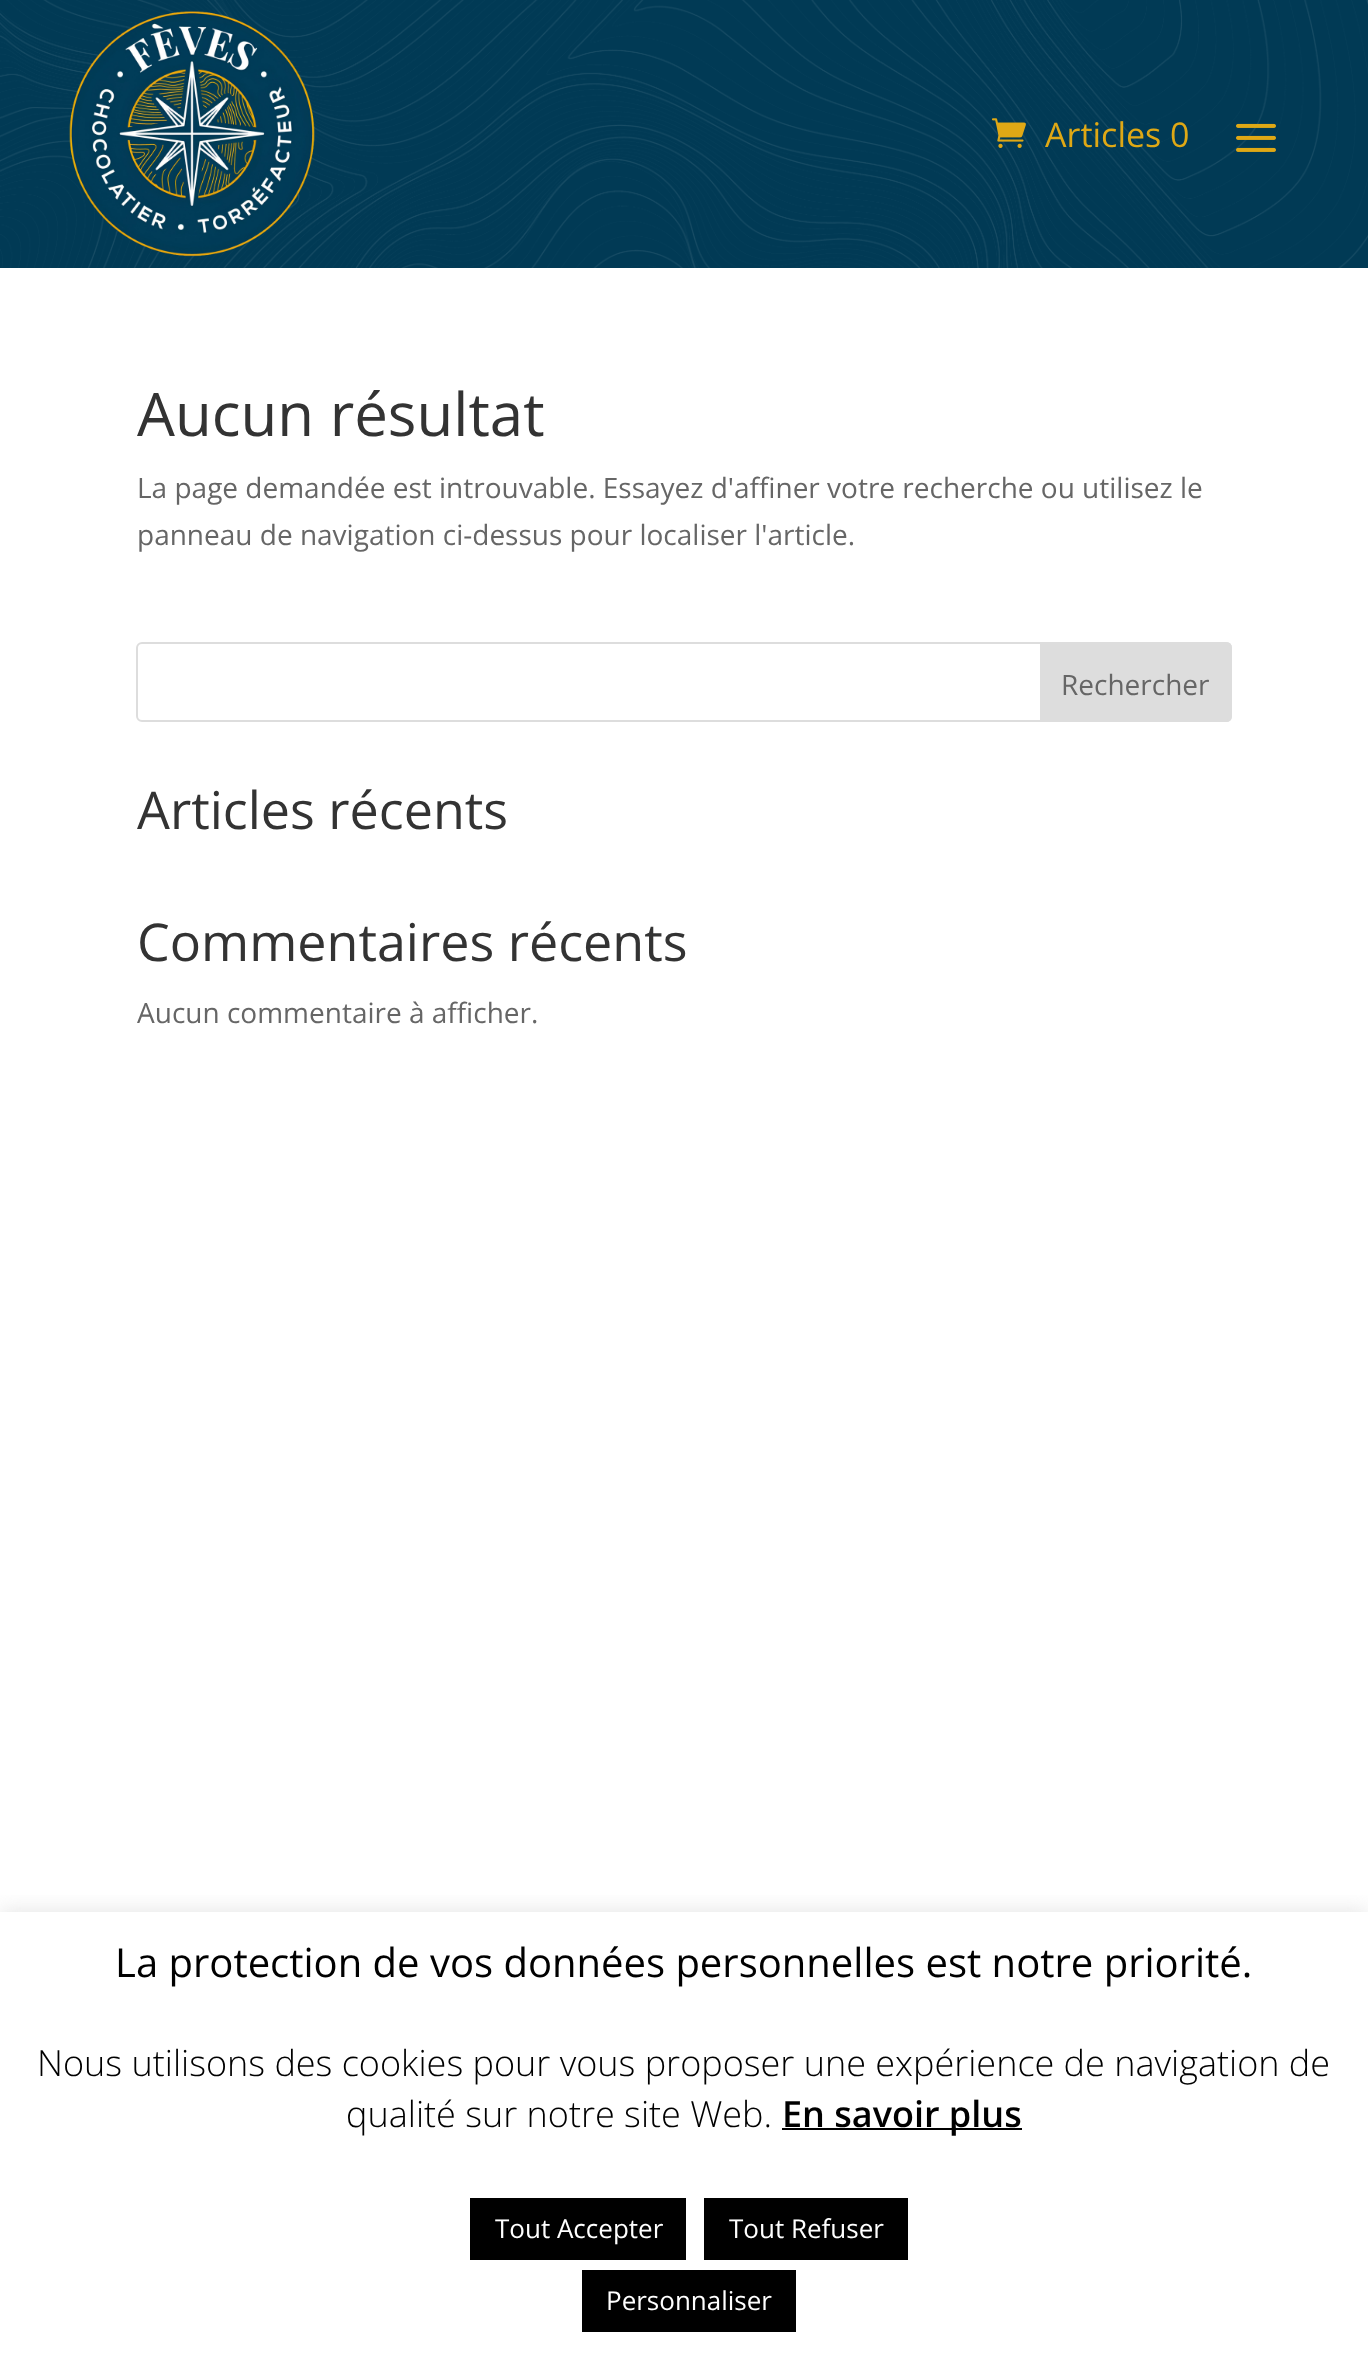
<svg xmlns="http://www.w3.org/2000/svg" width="1368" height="2356">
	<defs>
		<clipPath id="clip1"><rect x="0" y="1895" width="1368" height="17" /></clipPath>
	</defs>
	<rect width="100%" height="100%" fill="#FFFFFF" />
	<rect x="0" y="0" width="1368" height="268" fill="#013A55" />
	<image x="0" y="0" width="1368" height="268" href="assets/img1.png" />
	<image x="69" y="11" width="246" height="246" href="assets/img2.png" />
	<image x="991" y="118" width="35" height="30" href="assets/img3.png" />
	<text x="1045" y="147" font-family="Open Sans" font-size="34" fill="#DFA815">Articles 0</text>
	<image x="1236" y="123" width="40" height="29" href="assets/img4.png" />
	<text x="137" y="436" font-family="Open Sans" font-size="60" fill="#333333">Aucun résultat</text>
	<g font-family="Open Sans" font-size="28" fill="#666666">
		<text x="137" y="498">La page demandée est introuvable. Essayez d'affiner votre recherche ou utilisez le</text>
		<text x="137" y="545">panneau de navigation ci-dessus pour localiser l'article.</text>
	</g>
	<rect x="137" y="643" width="1094" height="78" rx="5" fill="none" stroke="#DDDDDD" stroke-width="2" />
	<path d="M1041 643H1226C1229 643 1231 645 1231 648V716C1231 719 1229 721 1226 721H1041Z" fill="#DDDDDD" stroke="#DDDDDD" stroke-width="2" />
	<text x="1061" y="695" font-family="Open Sans" font-size="28" fill="#666666">Rechercher</text>
	<g font-family="Open Sans" font-size="52" fill="#333333">
		<text x="137" y="829">Articles récents</text>
		<text x="137" y="961">Commentaires récents</text>
	</g>
	<text x="137" y="1023" font-family="Open Sans" font-size="28" fill="#666666">Aucun commentaire à afficher.</text>
	<g clip-path="url(#clip1)">
		<rect x="0" y="1910" width="1368" height="444" fill="#ACABAB" fill-opacity="0.3" filter="blur(10px)" />
	</g>
	<text x="115" y="1977" font-family="Open Sans" font-size="40" fill="#000000">La protection de vos données personnelles est notre priorité.</text>
	<g font-family="Open Sans" font-size="36" font-weight="300" fill="#000000">
		<text x="37" y="2076">Nous utilisons des cookies pour vous proposer une expérience de navigation de</text>
		<text x="346" y="2127">qualité sur notre site Web.</text>
	</g>
	<rect x="782" y="2128" width="240" height="2" fill="#000000" />
	<text x="782" y="2127" font-family="Open Sans" font-size="36" font-weight="600" fill="#000000">En savoir plus</text>
	<rect x="470" y="2198" width="216" height="62" fill="#000000" />
	<text x="495" y="2238" font-family="Open Sans" font-size="26" fill="#FFFFFF">Tout Accepter</text>
	<rect x="704" y="2198" width="204" height="62" fill="#000000" />
	<text x="729" y="2238" font-family="Open Sans" font-size="26" fill="#FFFFFF">Tout Refuser</text>
	<rect x="582" y="2270" width="214" height="62" fill="#000000" />
	<text x="606" y="2310" font-family="Open Sans" font-size="26" fill="#FFFFFF">Personnaliser</text>
</svg>
